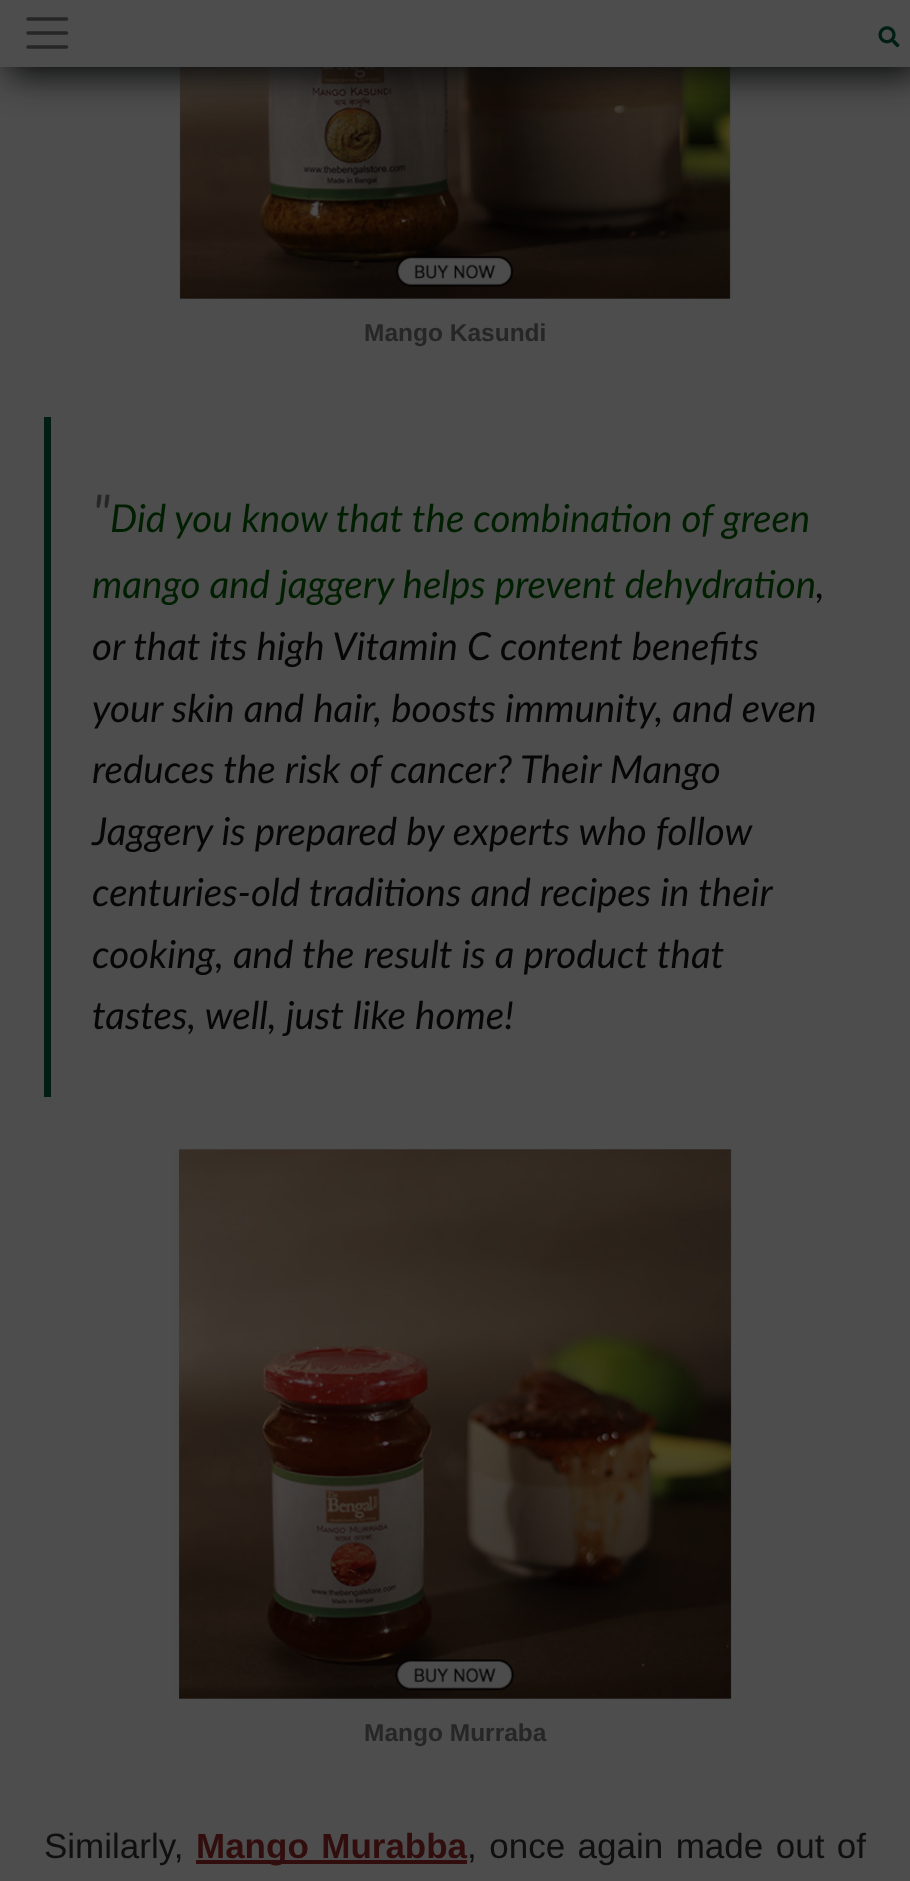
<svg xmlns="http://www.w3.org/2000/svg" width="910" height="1881">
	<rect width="100%" height="100%" fill="#4D4D4D" />
	<image x="179" y="67" width="553" height="232" href="assets/img2.png" />
	<rect x="9" y="9" width="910" height="66" fill="#0A0B0C" filter="blur(17.5px)" />
	<rect x="0" y="0" width="910" height="67" fill="#4D4D4D" />
	<path d="M28 19H66.5M28 33H66.5M28 47H66.5" fill="none" stroke="#262626" stroke-width="3.5" stroke-linecap="round" />
	<image x="878" y="26" width="22" height="22" href="assets/img1.png" />
	<text x="364" y="341" font-family="Liberation Sans" font-size="24.5" font-weight="700" fill="#262626">Mango Kasundi</text>
	<rect x="44" y="417" width="7" height="680" fill="#021E14" />
	<text x="92" y="532" font-family="Lato" font-size="52" font-style="italic" fill="#262626">"</text>
	<g font-family="Lato" font-size="38.5" font-style="italic" fill="#001E00">
		<text x="110" y="532">Did you know that the combination of green</text>
		<text x="92" y="598">mango and jaggery helps prevent dehydration</text>
	</g>
	<g font-family="Lato" font-size="38.5" font-style="italic" fill="#060606">
		<text x="816" y="598">,</text>
		<text x="92" y="660">or that its high Vitamin C content benefits</text>
		<text x="92" y="722">your skin and hair, boosts immunity, and even</text>
		<text x="92" y="783">reduces the risk of cancer? Their Mango</text>
		<text x="92" y="845">Jaggery is prepared by experts who follow</text>
		<text x="92" y="906">centuries-old traditions and recipes in their</text>
		<text x="92" y="968">cooking, and the result is a product that</text>
		<text x="92" y="1029">tastes, well, just like home!</text>
	</g>
	<image x="174" y="1149" width="558" height="550" href="assets/img3.png" />
	<text x="364" y="1741" font-family="Liberation Sans" font-size="24.5" font-weight="700" fill="#262626">Mango Murraba</text>
	<text x="44" y="1858" font-family="Liberation Sans" font-size="35" fill="#0F0F0F">Similarly,</text>
	<rect x="196" y="1860" width="271" height="4" fill="#320D0D" />
	<text x="196" y="1858" word-spacing="2.75" font-family="Liberation Sans" font-size="35" font-weight="700" fill="#320D0D">Mango Murabba</text>
	<text x="467" y="1858" word-spacing="2.75" font-family="Liberation Sans" font-size="35" fill="#0F0F0F">, once again made out of</text>
</svg>
